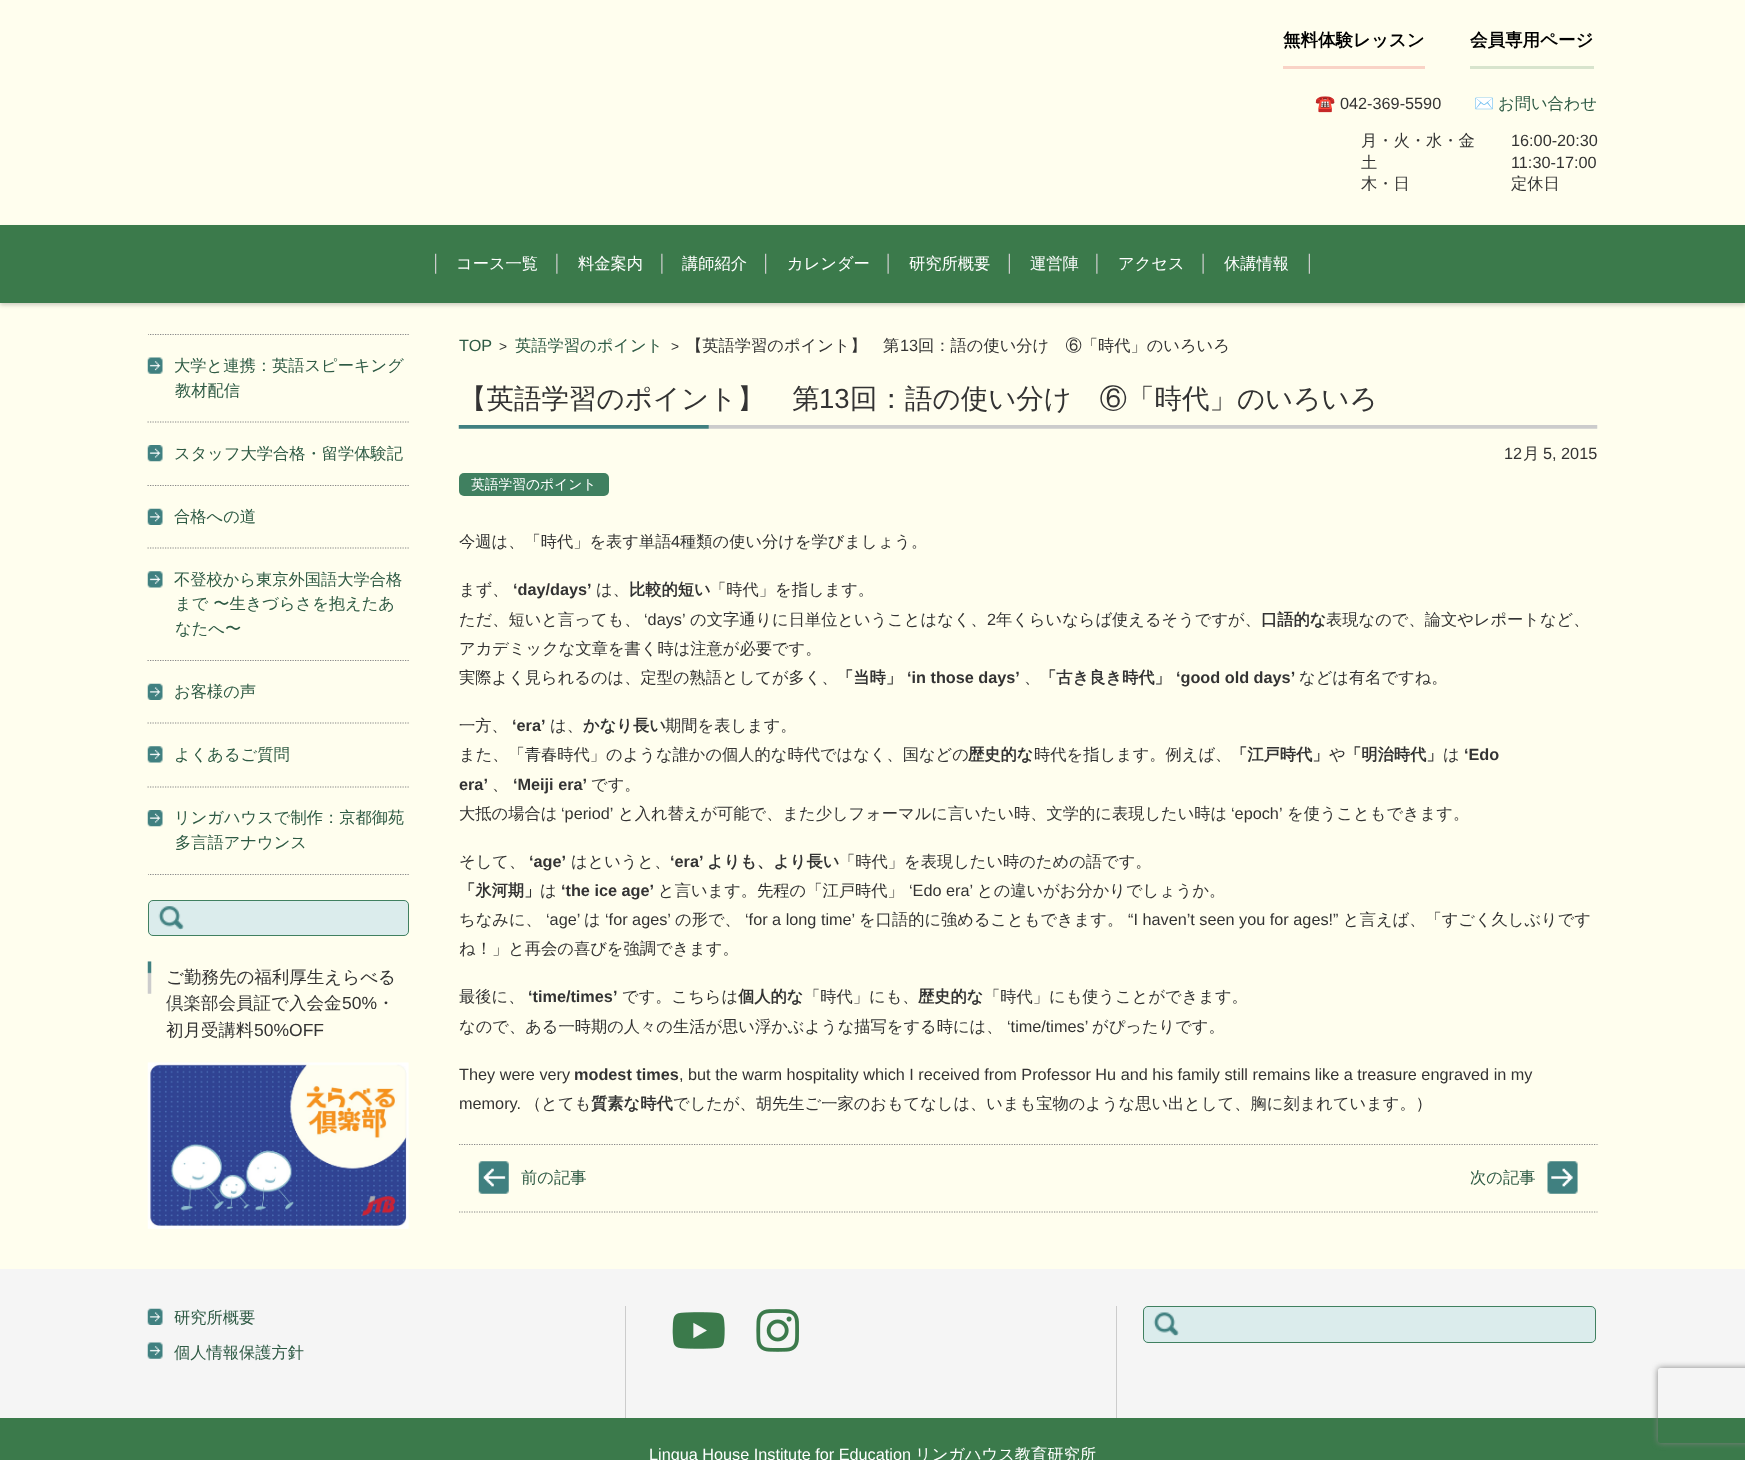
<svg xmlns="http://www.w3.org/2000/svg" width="1745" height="1460">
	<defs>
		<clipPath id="clip1"><rect x="148" y="334" width="261" height="541" /></clipPath>
		<clipPath id="clip2"><path d="M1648 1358H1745V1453H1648ZM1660.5 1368H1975.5C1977 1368 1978 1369 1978 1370.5V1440.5C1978 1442 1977 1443 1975.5 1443H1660.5C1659 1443 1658 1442 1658 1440.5V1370.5C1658 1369 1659 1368 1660.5 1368Z" clip-rule="evenodd" /></clipPath>
	</defs>
	<rect width="100%" height="100%" fill="#FFFEEE" />
	<rect x="1283" y="66" width="142" height="3" fill="#F9D3C6" />
	<text x="1283" y="46" font-family="WenQuanYi Zen Hei" font-size="17.5" font-weight="700" fill="#000000">無料体験レッスン</text>
	<path d="M1470 66V69H1594V19V66Z" fill="#D8E4CD" />
	<text x="1470" y="46" font-family="WenQuanYi Zen Hei" font-size="17.5" font-weight="700" fill="#000000">会員専用ページ</text>
	<text x="1315" y="109" font-family="Noto Color Emoji" font-size="16.25" fill="#333333">☎️</text>
	<text x="1340" y="109" font-family="Liberation Sans" font-size="16.25" fill="#333333">042-369-5590</text>
	<text x="1474" y="109" font-family="Noto Color Emoji" font-size="16.25" fill="#333333">✉️</text>
	<text x="1498" y="109" font-family="WenQuanYi Zen Hei" font-size="16.25" font-weight="500" fill="#2E5A44">お問い合わせ</text>
	<g font-family="WenQuanYi Zen Hei" font-size="16.25" font-weight="500" fill="#333333">
		<text x="1361" y="146">月・火・水・金</text>
		<text x="1361" y="168">土</text>
		<text x="1361" y="189">木・日</text>
	</g>
	<g font-family="Liberation Sans" font-size="16.25" fill="#333333">
		<text x="1511" y="146">16:00-20:30</text>
		<text x="1511" y="168">11:30-17:00</text>
	</g>
	<text x="1511" y="189" font-family="WenQuanYi Zen Hei" font-size="16.25" font-weight="500" fill="#333333">定休日</text>
	<rect x="0" y="228" width="1745" height="77" fill="#000000" fill-opacity="0.2" filter="blur(2px)" />
	<rect x="0" y="225" width="1745" height="78" fill="#3B7A4B" />
	<image x="435" y="253" width="2" height="21" href="assets/img1.png" />
	<text x="456" y="269" font-family="WenQuanYi Zen Hei" font-size="16.25" font-weight="500" fill="#FFFFFF">コース一覧</text>
	<image x="556" y="253" width="2" height="21" href="assets/img2.png" />
	<text x="578" y="269" font-family="WenQuanYi Zen Hei" font-size="16.25" font-weight="500" fill="#FFFFFF">料金案内</text>
	<image x="661" y="253" width="2" height="21" href="assets/img2.png" />
	<text x="682" y="269" font-family="WenQuanYi Zen Hei" font-size="16.25" font-weight="500" fill="#FFFFFF">講師紹介</text>
	<image x="765" y="253" width="2" height="21" href="assets/img1.png" />
	<text x="787" y="269" font-family="WenQuanYi Zen Hei" font-size="16.25" font-weight="500" fill="#FFFFFF">カレンダー</text>
	<image x="887" y="253" width="2" height="21" href="assets/img3.png" />
	<text x="909" y="269" font-family="WenQuanYi Zen Hei" font-size="16.25" font-weight="500" fill="#FFFFFF">研究所概要</text>
	<image x="1008" y="253" width="2" height="21" href="assets/img4.png" />
	<text x="1030" y="269" font-family="WenQuanYi Zen Hei" font-size="16.25" font-weight="500" fill="#FFFFFF">運営陣</text>
	<image x="1096" y="253" width="2" height="21" href="assets/img2.png" />
	<text x="1118" y="269" font-family="WenQuanYi Zen Hei" font-size="16.25" font-weight="500" fill="#FFFFFF">アクセス</text>
	<image x="1202" y="253" width="108" height="21" href="assets/img5.png" />
	<text x="1224" y="269" font-family="WenQuanYi Zen Hei" font-size="16.25" font-weight="500" fill="#FFFFFF">休講情報</text>
	<g clip-path="url(#clip1)">
		<path d="M147.5 334.5H409" fill="none" stroke="#888888" stroke-width="1.2" stroke-dasharray="1.25 1.25" />
	</g>
	<image x="147" y="357" width="16" height="17" href="assets/img6.png" />
	<path d="M147.5 422H409" fill="none" stroke="#888888" stroke-width="1.2" stroke-dasharray="1.25 1.25" />
	<g font-family="WenQuanYi Zen Hei" font-size="16.25" font-weight="500" fill="#2E5A44">
		<text x="174" y="371">大学と連携：英語スピーキング</text>
		<text x="175" y="396">教材配信</text>
	</g>
	<image x="147" y="445" width="16" height="17" href="assets/img7.png" />
	<path d="M147.5 485.5H409" fill="none" stroke="#888888" stroke-width="1.2" stroke-dasharray="1.25 1.25" />
	<text x="174" y="459" font-family="WenQuanYi Zen Hei" font-size="16.25" font-weight="500" fill="#2E5A44">スタッフ大学合格・留学体験記</text>
	<image x="147" y="508" width="16" height="17" href="assets/img8.png" />
	<path d="M147.5 548H409" fill="none" stroke="#888888" stroke-width="1.2" stroke-dasharray="1.25 1.25" />
	<text x="174" y="522" font-family="WenQuanYi Zen Hei" font-size="16.25" font-weight="500" fill="#2E5A44">合格への道</text>
	<image x="147" y="571" width="16" height="17" href="assets/img9.png" />
	<path d="M147.5 660.5H409" fill="none" stroke="#888888" stroke-width="1.2" stroke-dasharray="1.25 1.25" />
	<g font-family="WenQuanYi Zen Hei" font-size="16.25" font-weight="500" fill="#2E5A44">
		<text x="174" y="585">不登校から東京外国語大学合格</text>
		<text x="175" y="609">まで 〜生きづらさを抱えたあ</text>
		<text x="175" y="634">なたへ〜</text>
	</g>
	<image x="147" y="683" width="16" height="17" href="assets/img8.png" />
	<path d="M147.5 723H409" fill="none" stroke="#888888" stroke-width="1.2" stroke-dasharray="1.25 1.25" />
	<text x="174" y="697" font-family="WenQuanYi Zen Hei" font-size="16.25" font-weight="500" fill="#2E5A44">お客様の声</text>
	<image x="147" y="746" width="16" height="17" href="assets/img9.png" />
	<path d="M147.5 787H409" fill="none" stroke="#888888" stroke-width="1.2" stroke-dasharray="1.25 1.25" />
	<text x="174" y="760" font-family="WenQuanYi Zen Hei" font-size="16.25" font-weight="500" fill="#2E5A44">よくあるご質問</text>
	<image x="147" y="810" width="16" height="17" href="assets/img7.png" />
	<g clip-path="url(#clip1)">
		<path d="M147.5 874.5H409" fill="none" stroke="#888888" stroke-width="1.2" stroke-dasharray="1.25 1.25" />
	</g>
	<g font-family="WenQuanYi Zen Hei" font-size="16.25" font-weight="500" fill="#2E5A44">
		<text x="174" y="823">リンガハウスで制作：京都御苑</text>
		<text x="175" y="848">多言語アナウンス</text>
	</g>
	<rect x="148" y="900" width="261" height="36" rx="5" fill="#DBECEC" />
	<image x="158" y="906" width="26" height="24" href="assets/img10.png" />
	<rect x="148.5" y="900.5" width="260" height="35" rx="4.5" fill="none" stroke="#408060" />
	<image x="147" y="961" width="5" height="33" href="assets/img11.png" />
	<g font-family="WenQuanYi Zen Hei" font-size="17.5" font-weight="500" fill="#333333">
		<text x="166" y="983">ご勤務先の福利厚生えらべる</text>
		<text x="166" y="1009">倶楽部会員証で入会金</text>
	</g>
	<text x="342" y="1009" font-family="Liberation Sans" font-size="17.5" fill="#333333">50%</text>
	<g font-family="WenQuanYi Zen Hei" font-size="17.5" font-weight="500" fill="#333333">
		<text x="377" y="1009">・</text>
		<text x="166" y="1036">初月受講料</text>
	</g>
	<text x="254" y="1036" font-family="Liberation Sans" font-size="17.5" fill="#333333">50%OFF</text>
	<image x="147" y="1062" width="262" height="167" href="assets/img12.png" />
	<text x="459" y="351" font-family="Liberation Sans" font-size="16.25" fill="#2E5A44">TOP</text>
	<text x="499" y="351" font-family="Liberation Sans" font-size="13.75" fill="#333333">&gt;</text>
	<text x="515" y="351" font-family="WenQuanYi Zen Hei" font-size="16.25" font-weight="500" fill="#2E5A44">英語学習のポイント</text>
	<text x="671" y="351" font-family="Liberation Sans" font-size="13.75" fill="#333333">&gt;</text>
	<text x="686" y="351" font-family="WenQuanYi Zen Hei" font-size="16.25" font-weight="500" fill="#333333">【英語学習のポイント】　第</text>
	<text x="900" y="351" font-family="Liberation Sans" font-size="16.25" fill="#333333">13</text>
	<text x="918" y="351" font-family="WenQuanYi Zen Hei" font-size="16.25" font-weight="500" fill="#333333">回：語の使い分け　⑥「時代」のいろいろ</text>
	<image x="458" y="425" width="1140" height="4" href="assets/img13.png" />
	<text x="459" y="408" font-family="WenQuanYi Zen Hei" font-size="27.5" font-weight="500" fill="#333333">【英語学習のポイント】　第</text>
	<text x="819" y="408" font-family="Liberation Sans" font-size="27.5" fill="#333333">13</text>
	<text x="850" y="408" font-family="WenQuanYi Zen Hei" font-size="27.5" font-weight="500" fill="#333333">回：語の使い分け　⑥「時代」のいろいろ</text>
	<text x="1504" y="459" font-family="Liberation Sans" font-size="16.25" fill="#333333">12</text>
	<text x="1523" y="459" font-family="WenQuanYi Zen Hei" font-size="16.25" font-weight="500" fill="#333333">月</text>
	<text x="1543" y="459" font-family="Liberation Sans" font-size="16.25" fill="#333333">5, 2015</text>
	<rect x="459" y="473" width="150" height="23" rx="5" fill="#408060" />
	<text x="471" y="489" font-family="WenQuanYi Zen Hei" font-size="13.75" font-weight="500" fill="#FFFFFF">英語学習のポイント</text>
	<text x="459" y="547" font-family="WenQuanYi Zen Hei" font-size="16.25" font-weight="500" fill="#333333">今週は、「時代」を表す単語</text>
	<text x="671" y="547" font-family="Liberation Sans" font-size="16.25" fill="#333333">4</text>
	<g font-family="WenQuanYi Zen Hei" font-size="16.25" font-weight="500" fill="#333333">
		<text x="680" y="547">種類の使い分けを学びましょう。</text>
		<text x="459" y="595">まず、</text>
	</g>
	<text x="513" y="595" font-family="Liberation Sans" font-size="16.25" font-weight="700" fill="#333333">‘day/days’</text>
	<text x="596" y="595" font-family="WenQuanYi Zen Hei" font-size="16.25" font-weight="500" fill="#333333">は、</text>
	<text x="629" y="595" font-family="WenQuanYi Zen Hei" font-size="16.25" font-weight="700" fill="#333333">比較的短い</text>
	<g font-family="WenQuanYi Zen Hei" font-size="16.25" font-weight="500" fill="#333333">
		<text x="710" y="595">「時代」を指します。</text>
		<text x="459" y="625">ただ、短いと言っても、</text>
	</g>
	<text x="644" y="625" font-family="Liberation Sans" font-size="16.25" fill="#333333">‘days’</text>
	<text x="690" y="625" font-family="WenQuanYi Zen Hei" font-size="16.25" font-weight="500" fill="#333333">の文字通りに日単位ということはなく、</text>
	<text x="987" y="625" font-family="Liberation Sans" font-size="16.25" fill="#333333">2</text>
	<text x="996" y="625" font-family="WenQuanYi Zen Hei" font-size="16.25" font-weight="500" fill="#333333">年くらいならば使えるそうですが、</text>
	<text x="1261" y="625" font-family="WenQuanYi Zen Hei" font-size="16.25" font-weight="700" fill="#333333">口語的な</text>
	<g font-family="WenQuanYi Zen Hei" font-size="16.25" font-weight="500" fill="#333333">
		<text x="1326" y="625">表現なので、論文やレポートなど、</text>
		<text x="459" y="654">アカデミックな文章を書く時は注意が必要です。</text>
		<text x="459" y="683">実際よく見られるのは、定型の熟語としてが多く、</text>
	</g>
	<text x="837" y="683" font-family="WenQuanYi Zen Hei" font-size="16.25" font-weight="700" fill="#333333">「当時」</text>
	<text x="907" y="683" font-family="Liberation Sans" font-size="16.25" font-weight="700" fill="#333333">‘in those days’</text>
	<text x="1024" y="683" font-family="WenQuanYi Zen Hei" font-size="16.25" font-weight="500" fill="#333333">、</text>
	<text x="1040" y="683" font-family="WenQuanYi Zen Hei" font-size="16.25" font-weight="700" fill="#333333">「古き良き時代」</text>
	<text x="1176" y="683" font-family="Liberation Sans" font-size="16.25" font-weight="700" fill="#333333">‘good old days’</text>
	<g font-family="WenQuanYi Zen Hei" font-size="16.25" font-weight="500" fill="#333333">
		<text x="1299" y="683">などは有名ですね。</text>
		<text x="459" y="731">一方、</text>
	</g>
	<text x="512" y="731" font-family="Liberation Sans" font-size="16.25" font-weight="700" fill="#333333">‘era’</text>
	<text x="550" y="731" font-family="WenQuanYi Zen Hei" font-size="16.25" font-weight="500" fill="#333333">は、</text>
	<text x="583" y="731" font-family="WenQuanYi Zen Hei" font-size="16.25" font-weight="700" fill="#333333">かなり長い</text>
	<g font-family="WenQuanYi Zen Hei" font-size="16.25" font-weight="500" fill="#333333">
		<text x="665" y="731">期間を表します。</text>
		<text x="459" y="760">また、「青春時代」のような誰かの個人的な時代ではなく、国などの</text>
	</g>
	<text x="968" y="760" font-family="WenQuanYi Zen Hei" font-size="16.25" font-weight="700" fill="#333333">歴史的な</text>
	<text x="1034" y="760" font-family="WenQuanYi Zen Hei" font-size="16.25" font-weight="500" fill="#333333">時代を指します。例えば、</text>
	<text x="1231" y="760" font-family="WenQuanYi Zen Hei" font-size="16.25" font-weight="700" fill="#333333">「江戸時代」</text>
	<text x="1329" y="760" font-family="WenQuanYi Zen Hei" font-size="16.25" font-weight="500" fill="#333333">や</text>
	<text x="1345" y="760" font-family="WenQuanYi Zen Hei" font-size="16.25" font-weight="700" fill="#333333">「明治時代」</text>
	<text x="1443" y="760" font-family="WenQuanYi Zen Hei" font-size="16.25" font-weight="500" fill="#333333">は</text>
	<g font-family="Liberation Sans" font-size="16.25" font-weight="700" fill="#333333">
		<text x="1464" y="760">‘Edo</text>
		<text x="459" y="790">era’</text>
	</g>
	<text x="492" y="790" font-family="WenQuanYi Zen Hei" font-size="16.25" font-weight="500" fill="#333333">、</text>
	<text x="513" y="790" font-family="Liberation Sans" font-size="16.25" font-weight="700" fill="#333333">‘Meiji era’</text>
	<g font-family="WenQuanYi Zen Hei" font-size="16.25" font-weight="500" fill="#333333">
		<text x="591" y="790">です。</text>
		<text x="459" y="819">大抵の場合は</text>
	</g>
	<text x="561" y="819" font-family="Liberation Sans" font-size="16.25" fill="#333333">‘period’</text>
	<text x="618" y="819" font-family="WenQuanYi Zen Hei" font-size="16.25" font-weight="500" fill="#333333">と入れ替えが可能で、また少しフォーマルに言いたい時、文学的に表現したい時は</text>
	<text x="1231" y="819" font-family="Liberation Sans" font-size="16.25" fill="#333333">‘epoch’</text>
	<g font-family="WenQuanYi Zen Hei" font-size="16.25" font-weight="500" fill="#333333">
		<text x="1287" y="819">を使うこともできます。</text>
		<text x="459" y="867">そして、</text>
	</g>
	<text x="529" y="867" font-family="Liberation Sans" font-size="16.25" font-weight="700" fill="#333333">‘age’</text>
	<text x="571" y="867" font-family="WenQuanYi Zen Hei" font-size="16.25" font-weight="500" fill="#333333">はというと、</text>
	<text x="670" y="867" font-family="Liberation Sans" font-size="16.25" font-weight="700" fill="#333333">‘era’</text>
	<text x="707" y="867" font-family="WenQuanYi Zen Hei" font-size="16.25" font-weight="700" fill="#333333">よりも、より長い</text>
	<text x="839" y="867" font-family="WenQuanYi Zen Hei" font-size="16.25" font-weight="500" fill="#333333">「時代」を表現したい時のための語です。</text>
	<text x="459" y="896" font-family="WenQuanYi Zen Hei" font-size="16.25" font-weight="700" fill="#333333">「氷河期」</text>
	<text x="540" y="896" font-family="WenQuanYi Zen Hei" font-size="16.25" font-weight="500" fill="#333333">は</text>
	<text x="561" y="896" font-family="Liberation Sans" font-size="16.25" font-weight="700" fill="#333333">‘the ice age’</text>
	<text x="658" y="896" font-family="WenQuanYi Zen Hei" font-size="16.25" font-weight="500" fill="#333333">と言います。先程の「江戸時代」</text>
	<text x="909" y="896" font-family="Liberation Sans" font-size="16.25" fill="#333333">‘Edo era’</text>
	<g font-family="WenQuanYi Zen Hei" font-size="16.25" font-weight="500" fill="#333333">
		<text x="977" y="896">との違いがお分かりでしょうか。</text>
		<text x="459" y="925">ちなみに、</text>
	</g>
	<text x="546" y="925" font-family="Liberation Sans" font-size="16.25" fill="#333333">‘age’</text>
	<text x="584" y="925" font-family="WenQuanYi Zen Hei" font-size="16.25" font-weight="500" fill="#333333">は</text>
	<text x="605" y="925" font-family="Liberation Sans" font-size="16.25" fill="#333333">‘for ages’</text>
	<text x="675" y="925" font-family="WenQuanYi Zen Hei" font-size="16.25" font-weight="500" fill="#333333">の形で、</text>
	<text x="745" y="925" font-family="Liberation Sans" font-size="16.25" fill="#333333">‘for a long time’</text>
	<text x="859" y="925" font-family="WenQuanYi Zen Hei" font-size="16.25" font-weight="500" fill="#333333">を口語的に強めることもできます。</text>
	<text x="1128" y="925" font-family="Liberation Sans" font-size="16.25" fill="#333333">“I haven’t seen you for ages!”</text>
	<g font-family="WenQuanYi Zen Hei" font-size="16.25" font-weight="500" fill="#333333">
		<text x="1343" y="925">と言えば、「すごく久しぶりです</text>
		<text x="459" y="954">ね！」と再会の喜びを強調できます。</text>
		<text x="459" y="1002">最後に、</text>
	</g>
	<text x="528" y="1002" font-family="Liberation Sans" font-size="16.25" font-weight="700" fill="#333333">‘time/times’</text>
	<text x="622" y="1002" font-family="WenQuanYi Zen Hei" font-size="16.25" font-weight="500" fill="#333333">です。こちらは</text>
	<text x="738" y="1002" font-family="WenQuanYi Zen Hei" font-size="16.25" font-weight="700" fill="#333333">個人的な</text>
	<text x="804" y="1002" font-family="WenQuanYi Zen Hei" font-size="16.25" font-weight="500" fill="#333333">「時代」にも、</text>
	<text x="918" y="1002" font-family="WenQuanYi Zen Hei" font-size="16.25" font-weight="700" fill="#333333">歴史的な</text>
	<g font-family="WenQuanYi Zen Hei" font-size="16.25" font-weight="500" fill="#333333">
		<text x="984" y="1002">「時代」にも使うことができます。</text>
		<text x="459" y="1032">なので、ある一時期の人々の生活が思い浮かぶような描写をする時には、</text>
	</g>
	<text x="1007" y="1032" font-family="Liberation Sans" font-size="16.25" fill="#333333">‘time/times’</text>
	<text x="1092" y="1032" font-family="WenQuanYi Zen Hei" font-size="16.25" font-weight="500" fill="#333333">がぴったりです。</text>
	<text x="459" y="1080" font-family="Liberation Sans" font-size="16.25" fill="#333333">They were very</text>
	<text x="574" y="1080" font-family="Liberation Sans" font-size="16.25" font-weight="700" fill="#333333">modest times</text>
	<g font-family="Liberation Sans" font-size="16.25" fill="#333333">
		<text x="679" y="1080">, but the warm hospitality which I received from Professor Hu and his family still remains like a treasure engraved in my</text>
		<text x="459" y="1109">memory.</text>
	</g>
	<text x="525" y="1109" font-family="WenQuanYi Zen Hei" font-size="16.25" font-weight="500" fill="#333333">（とても</text>
	<text x="591" y="1109" font-family="WenQuanYi Zen Hei" font-size="16.25" font-weight="700" fill="#333333">質素な時代</text>
	<text x="673" y="1109" font-family="WenQuanYi Zen Hei" font-size="16.25" font-weight="500" fill="#333333">でしたが、胡先生ご一家のおもてなしは、いまも宝物のような思い出として、胸に刻まれています。）</text>
	<path d="M459 1144.5H1597.5" fill="none" stroke="#888888" stroke-width="1.2" stroke-dasharray="1.25 1.25" />
	<path d="M459 1212H1597.5" fill="none" stroke="#888888" stroke-width="1.2" stroke-dasharray="1.25 1.25" />
	<image x="478" y="1161" width="31" height="33" href="assets/img14.png" />
	<text x="521" y="1183" font-family="WenQuanYi Zen Hei" font-size="16.25" font-weight="500" fill="#2E5A44">前の記事</text>
	<image x="1547" y="1161" width="31" height="33" href="assets/img15.png" />
	<text x="1470" y="1183" font-family="WenQuanYi Zen Hei" font-size="16.25" font-weight="500" fill="#2E5A44">次の記事</text>
	<rect x="0" y="1269" width="1745" height="149" fill="#F5F5F5" />
	<rect x="625" y="1306" width="1" height="112" fill="#CCCCCC" />
	<image x="147" y="1308" width="16" height="17" href="assets/img16.png" />
	<text x="174" y="1323" font-family="WenQuanYi Zen Hei" font-size="16.25" font-weight="500" fill="#2E5A44">研究所概要</text>
	<image x="147" y="1342" width="16" height="17" href="assets/img17.png" />
	<text x="174" y="1358" font-family="WenQuanYi Zen Hei" font-size="16.25" font-weight="500" fill="#2E5A44">個人情報保護方針</text>
	<rect x="1116" y="1306" width="1" height="112" fill="#CCCCCC" />
	<image x="672" y="1312" width="53" height="37" href="assets/img18.png" />
	<image x="756" y="1309" width="43" height="43" href="assets/img19.png" />
	<rect x="1143" y="1306" width="453" height="37" rx="5" fill="#DBECEC" />
	<image x="1153" y="1312" width="26" height="24" href="assets/img20.png" />
	<rect x="1143.5" y="1306.5" width="452" height="36" rx="4.5" fill="none" stroke="#408060" />
	<rect x="0" y="1418" width="1745" height="42" fill="#3B7A4B" />
	<text x="649" y="1460" font-family="Liberation Sans" font-size="16.25" fill="#FFFFFF">Lingua House Institute for Education</text>
	<text x="915" y="1460" font-family="WenQuanYi Zen Hei" font-size="16.25" font-weight="500" fill="#FFFFFF">リンガハウス教育研究所</text>
	<g clip-path="url(#clip2)">
		<rect x="1658" y="1368" width="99" height="75" rx="2.5" fill="#808080" filter="blur(3px)" />
	</g>
</svg>
